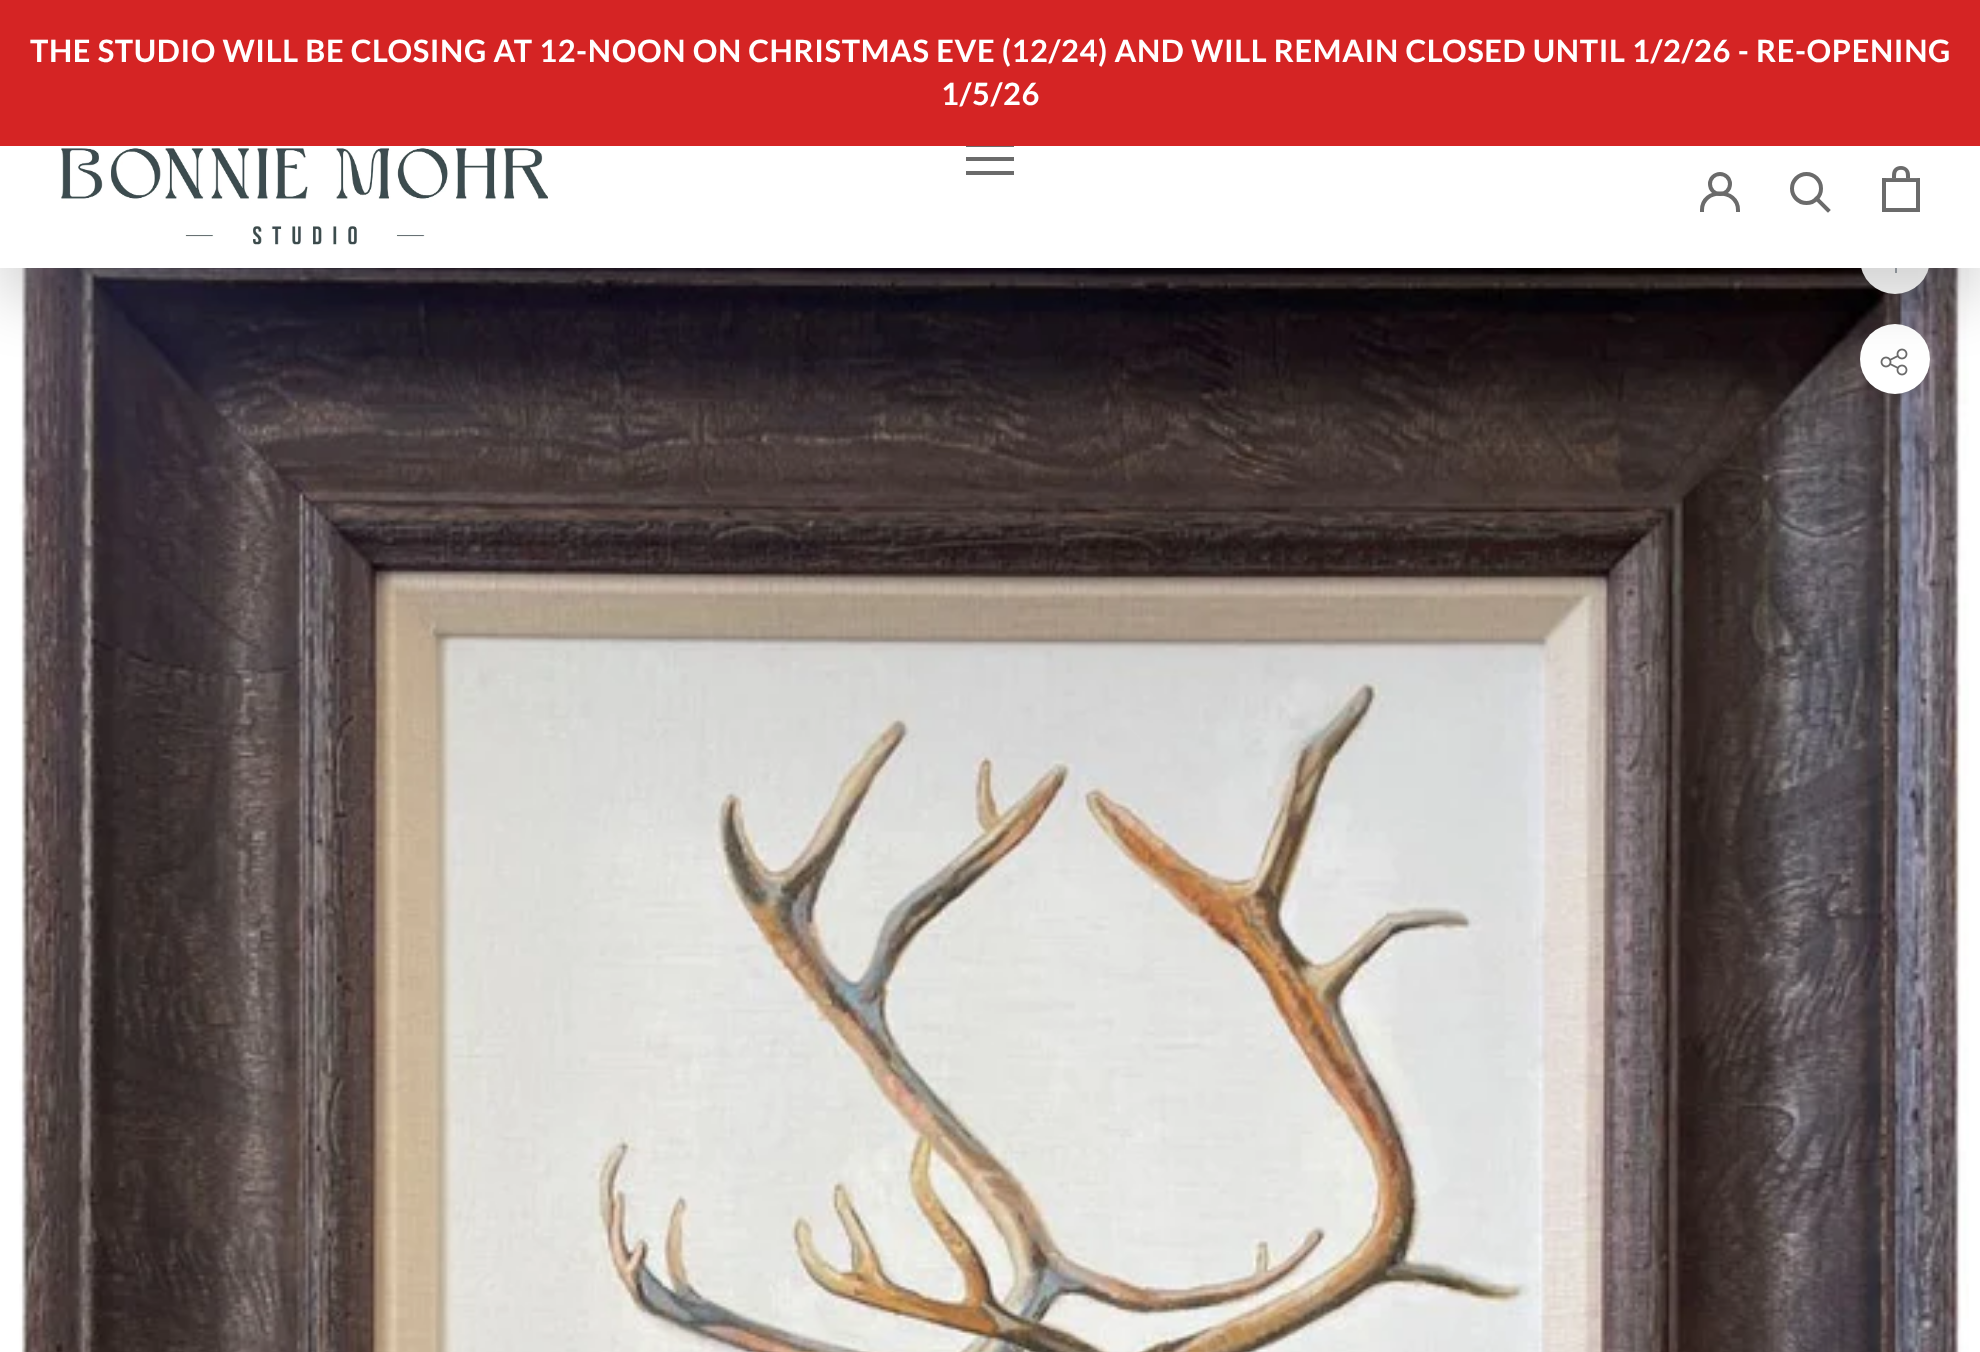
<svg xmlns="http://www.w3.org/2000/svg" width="1980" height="1352">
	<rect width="100%" height="100%" fill="#FFFFFF" />
	<image x="19" y="268" width="1950" height="1084" href="assets/img4.png" />
	<rect x="1860" y="226" width="70" height="70" rx="35" fill="#363636" fill-opacity="0.15" filter="blur(5px)" />
	<circle cx="1895" cy="259" r="35" fill="#FFFFFF" />
	<rect x="1895" y="268" width="2" height="5" fill="#A2A8AF" />
	<rect x="1860" y="326" width="70" height="70" rx="35" fill="#363636" fill-opacity="0.15" filter="blur(5px)" />
	<circle cx="1895" cy="359" r="35" fill="#FFFFFF" />
	<image x="1880" y="348" width="28" height="28" href="assets/img3.png" />
	<rect x="0" y="134" width="1980" height="164" fill="#000000" fill-opacity="0.18" filter="blur(30px)" />
	<rect x="0" y="146" width="1980" height="122" fill="#FFFFFF" />
	<path d="M966 175V171H1014V175ZM966 157H1014V161H966ZM966 143H1014V147H966Z" fill="#6B6B6B" />
	<rect x="0" y="0" width="1980" height="146" fill="#D52424" />
	<g font-family="Lato" font-size="30.8" font-weight="700" letter-spacing="0.62" fill="#FFFFFF">
		<text x="30" y="62">THE STUDIO WILL BE CLOSING AT 12-NOON ON CHRISTMAS EVE (12/24) AND WILL REMAIN CLOSED UNTIL 1/2/26 - RE-OPENING</text>
		<text x="941" y="105">1/5/26</text>
	</g>
	<image x="61" y="148" width="487" height="97" href="assets/img1.png" />
	<path d="M1702 210C1702 188 1738 188 1738 210" fill="none" stroke="#6B6B6B" stroke-width="4" stroke-linecap="square" />
	<circle cx="1720" cy="184" r="10" fill="none" stroke="#6B6B6B" stroke-width="4" />
	<path d="M1828 210L1816.5 198.5" fill="none" stroke="#6B6B6B" stroke-width="4" stroke-linecap="square" />
	<circle cx="1806.5" cy="188.5" r="14.5" fill="none" stroke="#6B6B6B" stroke-width="4" />
	<image x="1882" y="166" width="38" height="46" href="assets/img2.png" />
</svg>
